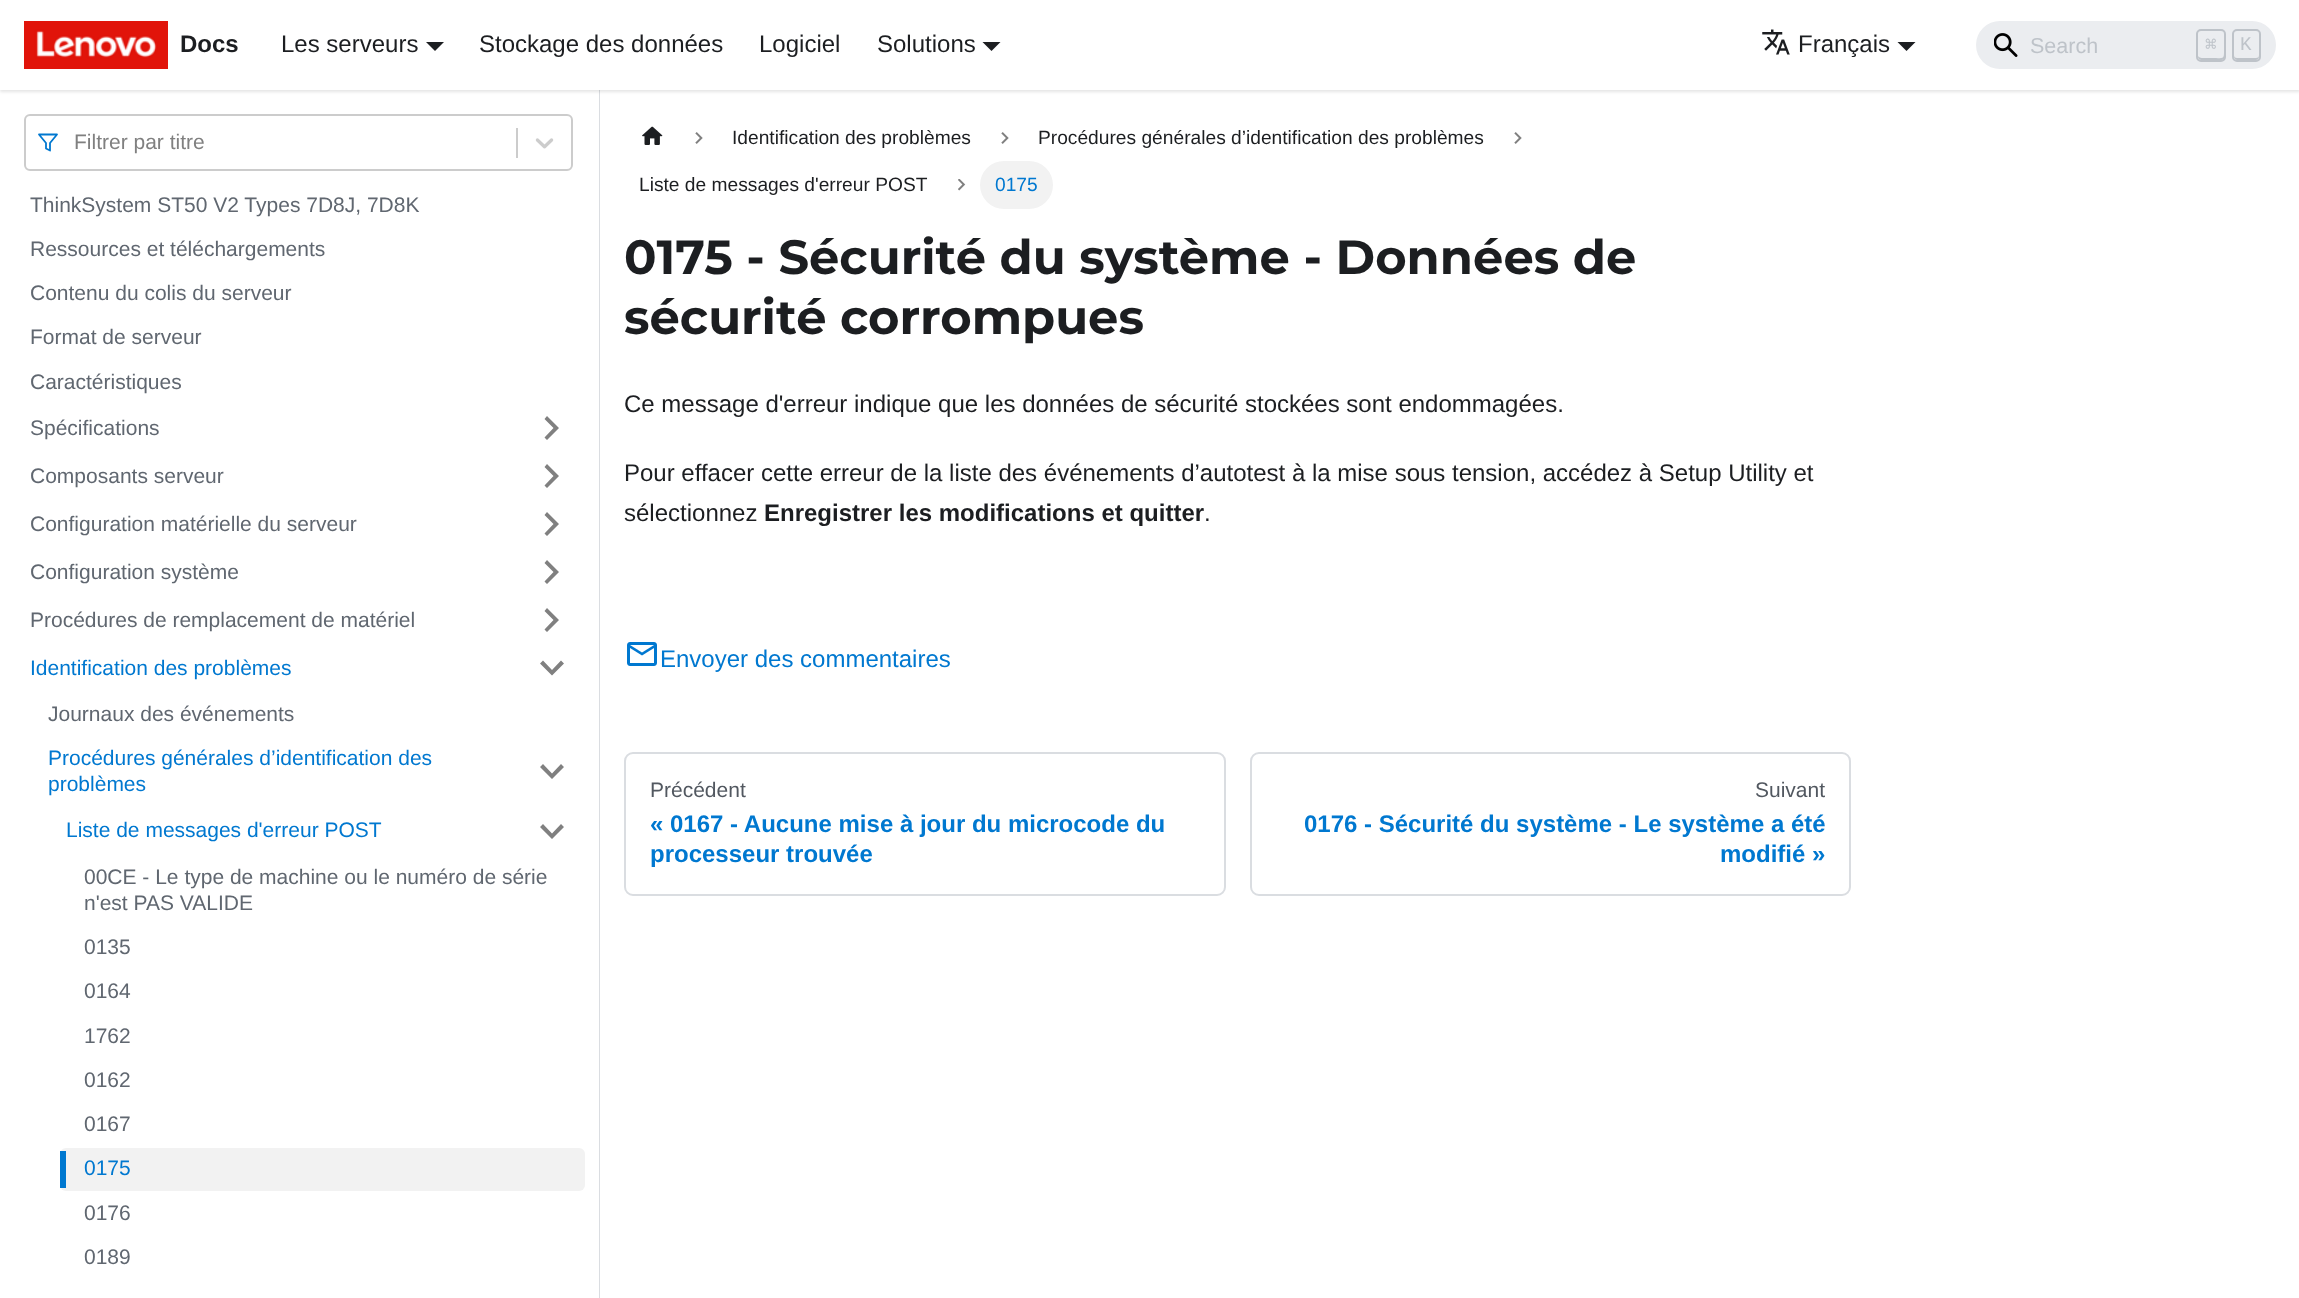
<svg xmlns="http://www.w3.org/2000/svg" width="2299" height="1298">
	<rect width="100%" height="100%" fill="#FFFFFF" />
	<rect x="599" y="90" width="1" height="1208" fill="#DADDE1" />
	<rect x="0" y="2" width="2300" height="90" fill="#000000" fill-opacity="0.1" filter="blur(1.5px)" />
	<rect x="0" y="0" width="2299" height="90" fill="#FFFFFF" />
	<image x="24" y="21" width="144" height="48" href="assets/img1.png" />
	<text x="180" y="52" font-family="Liberation Sans" font-size="24" font-weight="700" fill="#1C1E21">Docs</text>
	<text x="281" y="52" font-family="Liberation Sans" font-size="24" fill="#1C1E21">Les serveurs</text>
	<path d="M426 42H444L435 51Z" fill="#1C1E21" />
	<g font-family="Liberation Sans" font-size="24" fill="#1C1E21">
		<text x="479" y="52">Stockage des données</text>
		<text x="759" y="52">Logiciel</text>
		<text x="877" y="52">Solutions</text>
	</g>
	<path d="M982.5 42H1000.5L991.5 51Z" fill="#1C1E21" />
	<image x="1762" y="29" width="28" height="26" href="assets/img2.png" />
	<text x="1798" y="52" font-family="Liberation Sans" font-size="24" fill="#1C1E21">Français</text>
	<path d="M1897.5 42H1915.5L1906.5 51Z" fill="#1C1E21" />
	<rect x="1976" y="21" width="300" height="48" rx="24" fill="#EBEDF0" />
	<image x="1994" y="33" width="24" height="24" href="assets/img3.png" />
	<text x="2030" y="53" font-family="Liberation Sans" font-size="21.5" fill="#BEC3C9">Search</text>
	<path d="M2198 55C2198 60 2199.5 60 2204.5 60H2211.5C2228 60 2225 62 2225 45V37C2225 35 2225.5 32 2224 30.5V47.5C2224 60.5 2225 58 2211 58C2209 58 2200 58.5 2199 57C2198 56.5 2198 56 2198 55Z" fill="#BEC3C9" />
	<rect x="2197" y="30" width="28" height="31" rx="4" fill="none" stroke="#BEC3C9" stroke-width="2" />
	<text x="2205" y="51" font-family="DejaVu Sans Mono" font-size="19.2" fill="#BEC3C9">⌘</text>
	<path d="M2234 55C2234 60 2235.5 60 2240 60H2253C2257.5 60 2259 60 2259 55C2259 57 2258 58 2256 58H2237C2235 58 2234 57 2234 55Z" fill="#BEC3C9" />
	<rect x="2233" y="30" width="27" height="31" rx="4" fill="none" stroke="#BEC3C9" stroke-width="2" />
	<text x="2240" y="50" font-family="Liberation Mono" font-size="19.2" fill="#BEC3C9">K</text>
	<rect x="25" y="115" width="547" height="55" rx="5" fill="none" stroke="#CCCCCC" stroke-width="2" />
	<path d="M57 134.5H39L46 143V148.5L50 150.5V143Z" fill="none" stroke="#0078D0" stroke-width="1.8" stroke-linecap="round" stroke-linejoin="round" />
	<text x="74" y="149" font-family="Liberation Sans" font-size="21" fill="#808080">Filtrer par titre</text>
	<rect x="516" y="128" width="2" height="30" fill="#CCCCCC" />
	<image x="535" y="138" width="19" height="11" href="assets/img4.png" />
	<g font-family="Liberation Sans" font-size="21" fill="#606770">
		<text x="30" y="212">ThinkSystem ST50 V2 Types 7D8J, 7D8K</text>
		<text x="30" y="256">Ressources et téléchargements</text>
		<text x="30" y="300">Contenu du colis du serveur</text>
		<text x="30" y="344">Format de serveur</text>
		<text x="30" y="389">Caractéristiques</text>
		<text x="30" y="435">Spécifications</text>
	</g>
	<path d="M544.5 419L553.5 428L544.5 437.5L547 440L559 428L547 416Z" fill="#808080" />
	<text x="30" y="483" font-family="Liberation Sans" font-size="21" fill="#606770">Composants serveur</text>
	<path d="M544.5 467L553.5 476L544.5 485.5L547 488L559 476L547 464Z" fill="#808080" />
	<text x="30" y="531" font-family="Liberation Sans" font-size="21" fill="#606770">Configuration matérielle du serveur</text>
	<path d="M544.5 515L553.5 524L544.5 533.5L547 536L559 524L547 512Z" fill="#808080" />
	<text x="30" y="579" font-family="Liberation Sans" font-size="21" fill="#606770">Configuration système</text>
	<path d="M544.5 563L553.5 572L544.5 581.5L547 584L559 572L547 560Z" fill="#808080" />
	<text x="30" y="627" font-family="Liberation Sans" font-size="21" fill="#606770">Procédures de remplacement de matériel</text>
	<path d="M544.5 611L553.5 620L544.5 629.5L547 632L559 620L547 608Z" fill="#808080" />
	<text x="30" y="675" font-family="Liberation Sans" font-size="21" fill="#0078D0">Identification des problèmes</text>
	<path d="M561 660.5L552 670L543 660.5L540 663.5L552 675.5L564 663.5Z" fill="#808080" />
	<text x="48" y="721" font-family="Liberation Sans" font-size="21" fill="#606770">Journaux des événements</text>
	<g font-family="Liberation Sans" font-size="21" fill="#0078D0">
		<text x="48" y="765">Procédures générales d’identification des</text>
		<text x="48" y="791">problèmes</text>
	</g>
	<path d="M561 764L552 773.5L543 764L540 767L552 779L564 767Z" fill="#808080" />
	<text x="66" y="837" font-family="Liberation Sans" font-size="21" fill="#0078D0">Liste de messages d'erreur POST</text>
	<path d="M561 824L552 833.5L543 824L540 827L552 839L564 827Z" fill="#808080" />
	<g font-family="Liberation Sans" font-size="21" fill="#606770">
		<text x="84" y="884">00CE - Le type de machine ou le numéro de série</text>
		<text x="84" y="910">n'est PAS VALIDE</text>
		<text x="84" y="954">0135</text>
		<text x="84" y="998">0164</text>
		<text x="84" y="1043">1762</text>
		<text x="84" y="1087">0162</text>
		<text x="84" y="1131">0167</text>
	</g>
	<rect x="60" y="1148" width="525" height="43" rx="6" fill="#F2F2F2" />
	<rect x="60" y="1151" width="6" height="37" fill="#0078D0" />
	<text x="84" y="1175" font-family="Liberation Sans" font-size="21" fill="#0078D0">0175</text>
	<g font-family="Liberation Sans" font-size="21" fill="#606770">
		<text x="84" y="1220">0176</text>
		<text x="84" y="1264">0189</text>
	</g>
	<image x="642" y="126" width="21" height="19" href="assets/img5.png" />
	<image x="695" y="132" width="8" height="12" href="assets/img6.png" />
	<text x="732" y="144" font-family="Liberation Sans" font-size="19.2" fill="#1C1E21">Identification des problèmes</text>
	<image x="1001" y="132" width="8" height="12" href="assets/img6.png" />
	<text x="1038" y="144" font-family="Liberation Sans" font-size="19.2" fill="#1C1E21">Procédures générales d’identification des problèmes</text>
	<image x="1514" y="132" width="8" height="12" href="assets/img6.png" />
	<text x="639" y="191" font-family="Liberation Sans" font-size="19.2" fill="#1C1E21">Liste de messages d'erreur POST</text>
	<image x="958" y="179" width="8" height="12" href="assets/img7.png" />
	<rect x="980" y="161" width="73" height="48" rx="24" fill="#F2F2F2" />
	<text x="995" y="191" font-family="Liberation Sans" font-size="19.2" fill="#0078D0">0175</text>
	<g font-family="Montserrat" font-size="48" font-weight="700" fill="#1C1E21">
		<text x="624" y="274">0175 - Sécurité du système - Données de</text>
		<text x="624" y="334">sécurité corrompues</text>
	</g>
	<g font-family="Liberation Sans" font-size="24" fill="#1C1E21">
		<text x="624" y="412">Ce message d'erreur indique que les données de sécurité stockées sont endommagées.</text>
		<text x="624" y="481">Pour effacer cette erreur de la liste des événements d’autotest à la mise sous tension, accédez à Setup Utility et</text>
		<text x="624" y="521">sélectionnez</text>
	</g>
	<text x="764" y="521" font-family="Liberation Sans" font-size="24" font-weight="700" fill="#1C1E21">Enregistrer les modifications et quitter</text>
	<text x="1204" y="521" font-family="Liberation Sans" font-size="24" fill="#1C1E21">.</text>
	<image x="627" y="642" width="30" height="24" href="assets/img8.png" />
	<text x="660" y="667" font-family="Liberation Sans" font-size="24" fill="#0078D0">Envoyer des commentaires</text>
	<rect x="625" y="753" width="600" height="142" rx="8" fill="none" stroke="#DADDE1" stroke-width="2" />
	<text x="650" y="797" font-family="Liberation Sans" font-size="21" fill="#525860">Précédent</text>
	<g font-family="Liberation Sans" font-size="24" font-weight="700" fill="#0078D0">
		<text x="650" y="832">« 0167 - Aucune mise à jour du microcode du</text>
		<text x="650" y="862">processeur trouvée</text>
	</g>
	<rect x="1251" y="753" width="599" height="142" rx="8" fill="none" stroke="#DADDE1" stroke-width="2" />
	<text x="1755" y="797" font-family="Liberation Sans" font-size="21" fill="#525860">Suivant</text>
	<g font-family="Liberation Sans" font-size="24" font-weight="700" fill="#0078D0">
		<text x="1304" y="832">0176 - Sécurité du système - Le système a été</text>
		<text x="1720" y="862">modifié »</text>
	</g>
</svg>
